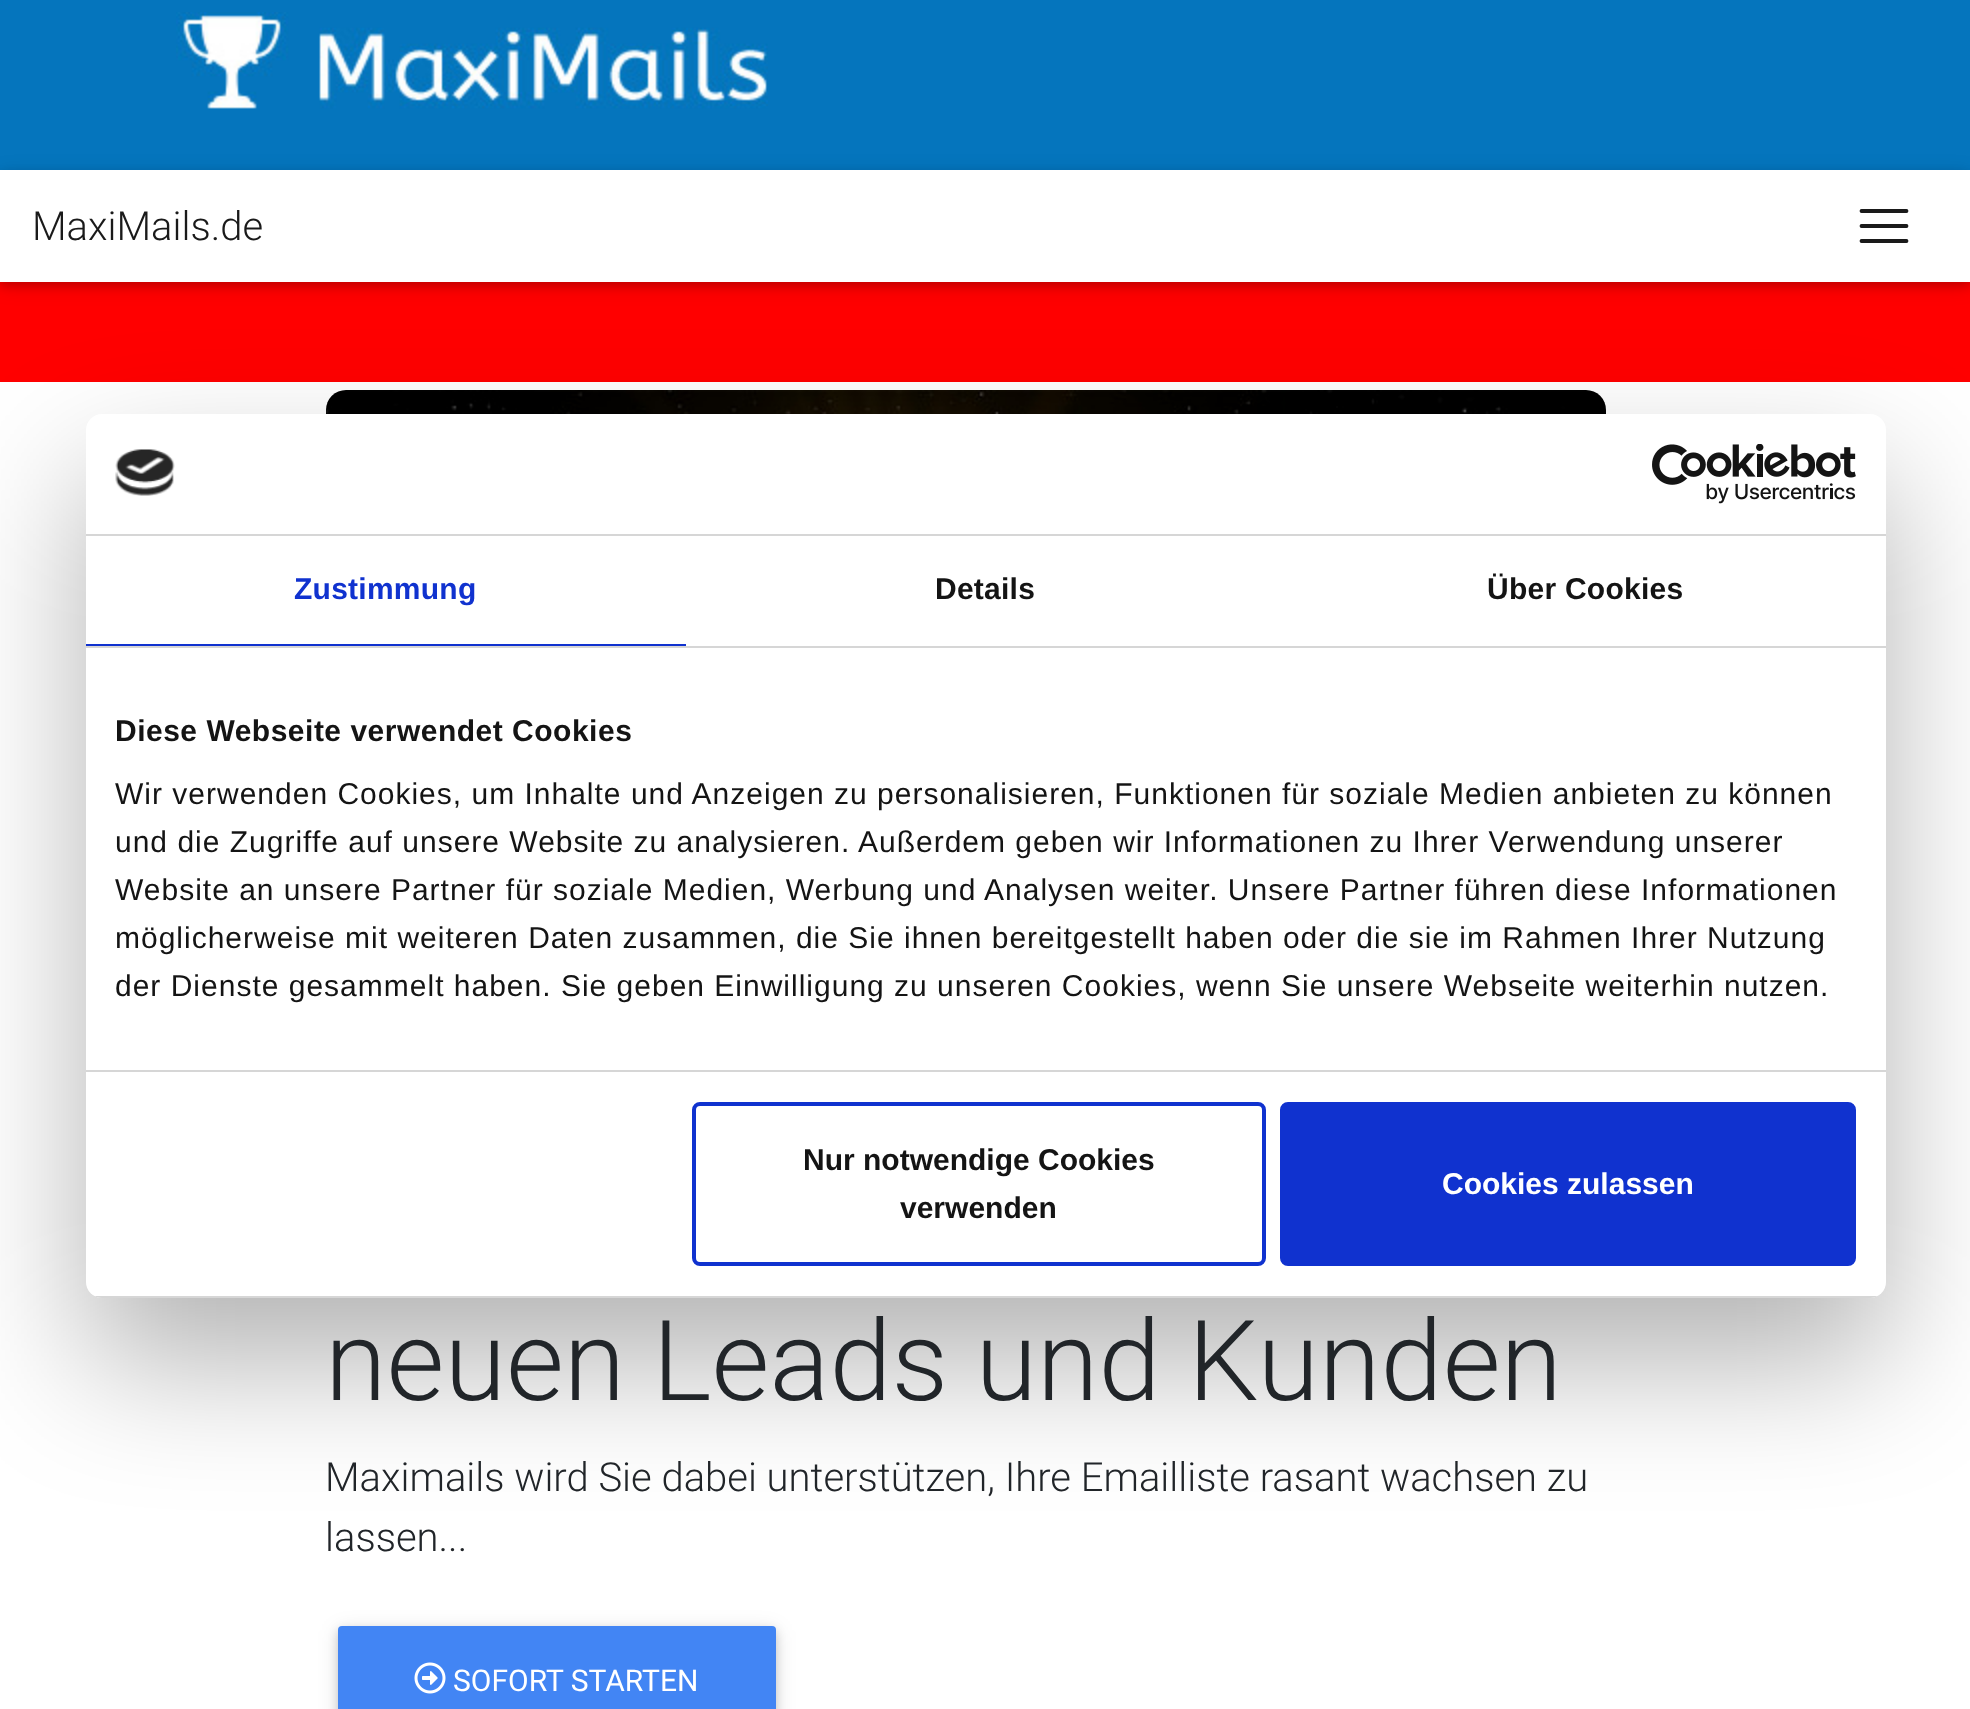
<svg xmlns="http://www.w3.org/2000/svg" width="1970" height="1709">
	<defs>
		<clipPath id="clip1"><path d="M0 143H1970V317H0ZM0 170H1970V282H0Z" clip-rule="evenodd" /></clipPath>
		<clipPath id="clip2"><path d="M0 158H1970V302H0ZM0 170H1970V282H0Z" clip-rule="evenodd" /></clipPath>
		<clipPath id="clip3"><rect x="86" y="414" width="1800" height="884" rx="16" /></clipPath>
	</defs>
	<rect width="100%" height="100%" fill="#FFFFFF" />
	<rect x="0" y="0" width="1970" height="170" fill="#0575BD" />
	<image x="176" y="12" width="592" height="97" href="assets/img1.png" />
	<rect x="0" y="282" width="1970" height="100" fill="#FF0000" />
	<g clip-path="url(#clip1)">
		<rect x="0" y="174" width="1970" height="112" fill="#000000" fill-opacity="0.12" filter="blur(10px)" />
	</g>
	<g clip-path="url(#clip2)">
		<rect x="0" y="174" width="1970" height="112" fill="#000000" fill-opacity="0.16" filter="blur(5px)" />
	</g>
	<text x="32" y="240" font-family="Roboto" font-size="40" font-weight="300" fill="#1A1A1A">MaxiMails.de</text>
	<path d="M1861.5 211H1906.5M1861.5 226H1906.5M1861.5 241H1906.5" fill="none" stroke="#1A1A1A" stroke-width="3.8" stroke-linecap="round" />
	<image x="326" y="390" width="1280" height="24" href="assets/img4.png" />
	<rect x="86" y="478" width="1800" height="884" rx="16" fill="#000000" fill-opacity="0.3" filter="blur(68px)" />
	<rect x="86" y="414" width="1800" height="884" rx="16" fill="#FFFFFF" />
	<rect x="86" y="534" width="1800" height="2" fill="#D6D6D6" />
	<image x="115" y="449" width="60" height="47" href="assets/img2.png" />
	<image x="1652" y="444" width="204" height="60" href="assets/img3.png" />
	<rect x="86" y="646" width="1800" height="2" fill="#D6D6D6" />
	<rect x="86" y="644" width="600" height="2" fill="#1032CF" />
	<text x="294" y="599" font-family="Liberation Sans" font-size="30" font-weight="700" letter-spacing="0.25" fill="#1032CF">Zustimmung</text>
	<g font-family="Liberation Sans" font-size="30" font-weight="700" letter-spacing="0.25" fill="#141414">
		<text x="935" y="599">Details</text>
		<text x="1487" y="599">Über Cookies</text>
	</g>
	<rect x="86" y="1070" width="1800" height="2" fill="#D6D6D6" />
	<text x="115" y="741" font-family="Liberation Sans" font-size="30" font-weight="700" letter-spacing="0.5" fill="#141414">Diese Webseite verwendet Cookies</text>
	<g font-family="Liberation Sans" font-size="30" letter-spacing="1" fill="#141414">
		<text x="115" y="804">Wir verwenden Cookies, um Inhalte und Anzeigen zu personalisieren, Funktionen für soziale Medien anbieten zu können</text>
		<text x="115" y="852">und die Zugriffe auf unsere Website zu analysieren. Außerdem geben wir Informationen zu Ihrer Verwendung unserer</text>
		<text x="115" y="900">Website an unsere Partner für soziale Medien, Werbung und Analysen weiter. Unsere Partner führen diese Informationen</text>
		<text x="115" y="948">möglicherweise mit weiteren Daten zusammen, die Sie ihnen bereitgestellt haben oder die sie im Rahmen Ihrer Nutzung</text>
		<text x="115" y="996">der Dienste gesammelt haben. Sie geben Einwilligung zu unseren Cookies, wenn Sie unsere Webseite weiterhin nutzen.</text>
	</g>
	<g clip-path="url(#clip3)">
		<rect x="86" y="1296" width="1800" height="2" fill="#D6D6D6" />
	</g>
	<rect x="694" y="1104" width="570" height="160" rx="6" fill="none" stroke="#1032CF" stroke-width="4" />
	<g font-family="Liberation Sans" font-size="30" font-weight="700" fill="#141414">
		<text x="803" y="1170">Nur notwendige Cookies</text>
		<text x="900" y="1218">verwenden</text>
	</g>
	<rect x="1282" y="1104" width="572" height="160" rx="6" fill="#1032CF" stroke="#1032CF" stroke-width="4" />
	<text x="1442" y="1194" font-family="Liberation Sans" font-size="30" font-weight="700" fill="#FFFFFF">Cookies zulassen</text>
	<text x="325" y="1400" font-family="Roboto" font-size="112" font-weight="300" fill="#212529">neuen Leads und Kunden</text>
	<g font-family="Roboto" font-size="40" font-weight="300" fill="#212529">
		<text x="325" y="1491">Maximails wird Sie dabei unterstützen, Ihre Emailliste rasant wachsen zu</text>
		<text x="325" y="1551">lassen...</text>
	</g>
	<rect x="338" y="1630" width="438" height="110" rx="4" fill="#000000" fill-opacity="0.12" filter="blur(10px)" />
	<rect x="338" y="1630" width="438" height="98" rx="4" fill="#000000" fill-opacity="0.16" filter="blur(5px)" />
	<rect x="338" y="1626" width="438" height="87" rx="4" fill="#4285F4" />
	<image x="414" y="1662" width="32" height="32" href="assets/img5.png" />
	<text x="453" y="1691" font-family="Roboto" font-size="30" fill="#FFFFFF">SOFORT STARTEN</text>
</svg>
